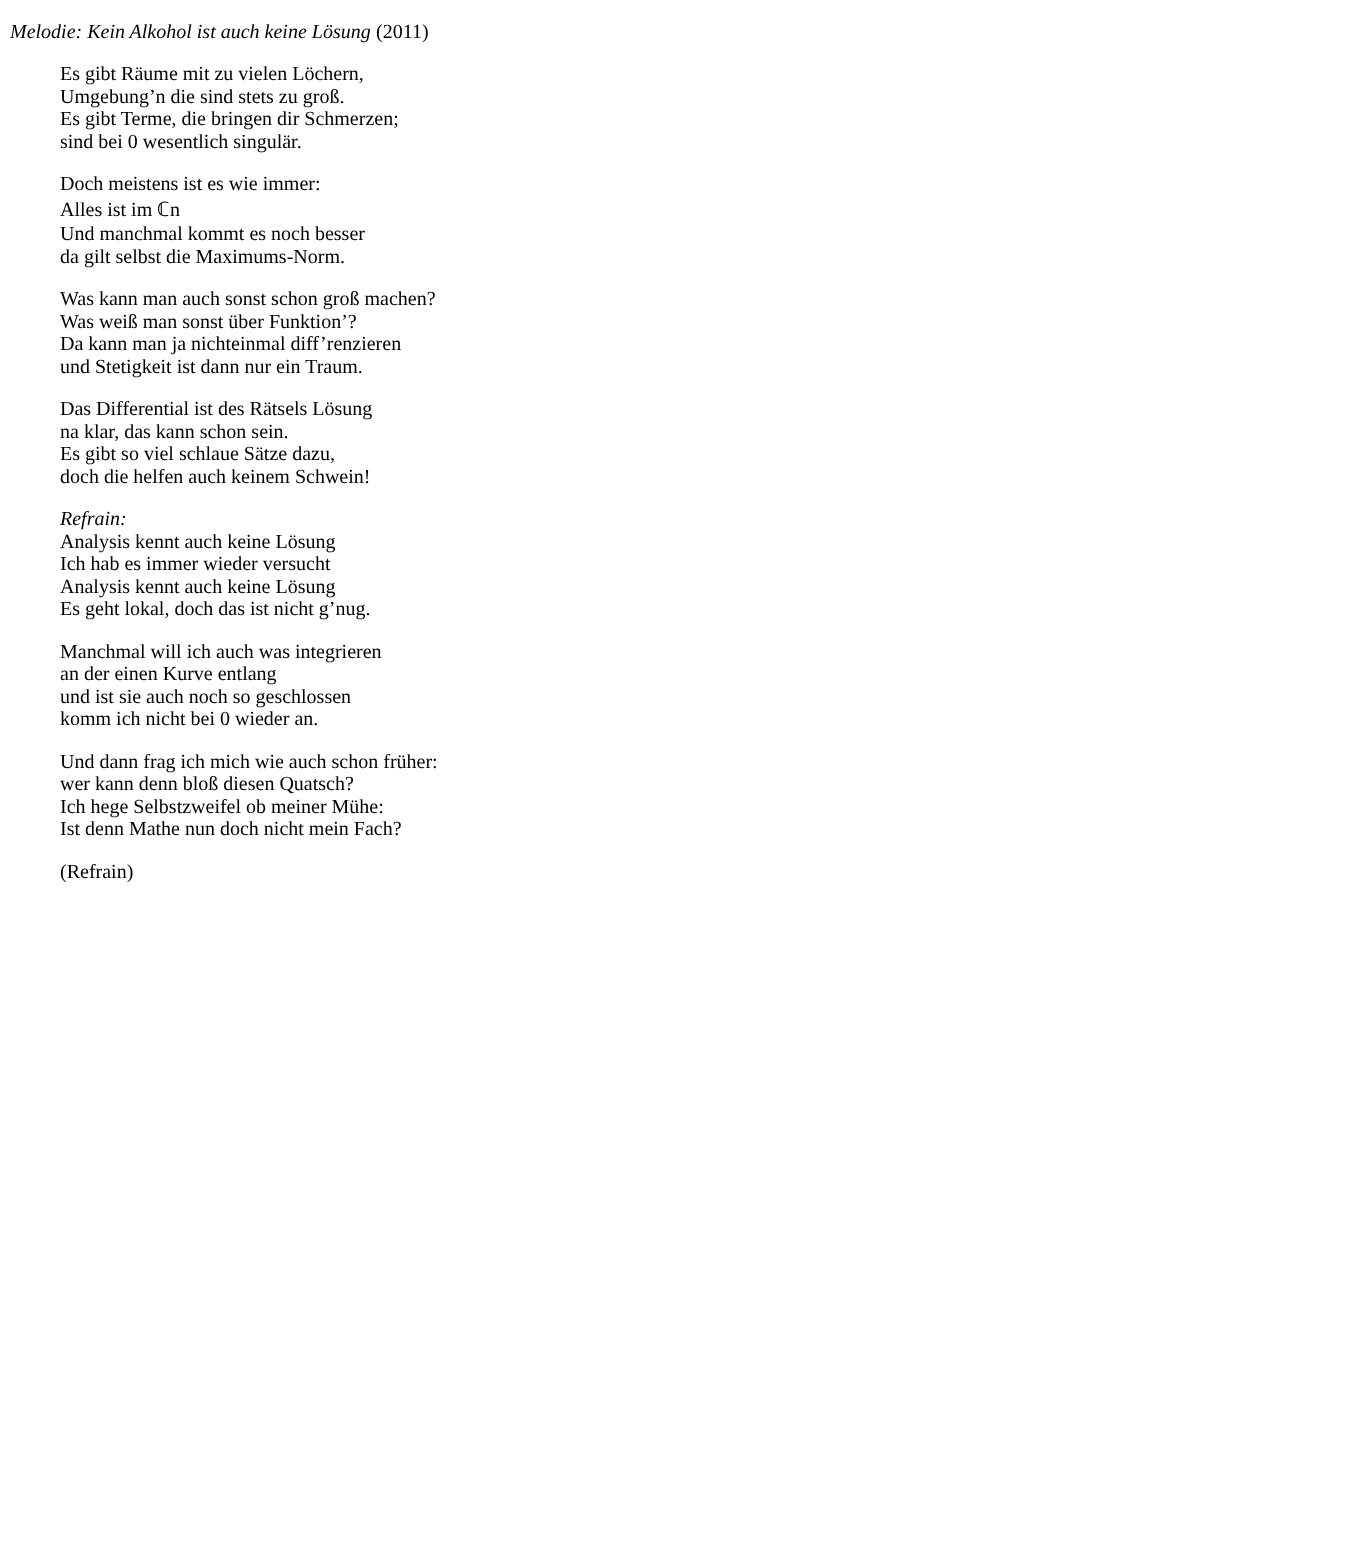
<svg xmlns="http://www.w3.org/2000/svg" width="1365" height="1566">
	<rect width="100%" height="100%" fill="#FFFFFF" />
	<text x="10" y="38" font-family="Liberation Serif" font-size="20" font-style="italic" fill="#000000">Melodie: Kein Alkohol ist auch keine Lösung</text>
	<g font-family="Liberation Serif" font-size="20" fill="#000000">
		<text x="376" y="38">(2011)</text>
		<text x="60" y="80">Es gibt Räume mit zu vielen Löchern,</text>
		<text x="60" y="103">Umgebung’n die sind stets zu groß.</text>
		<text x="60" y="125">Es gibt Terme, die bringen dir Schmerzen;</text>
		<text x="60" y="148">sind bei 0 wesentlich singulär.</text>
		<text x="60" y="190">Doch meistens ist es wie immer:</text>
		<text x="60" y="216">Alles ist im</text>
	</g>
	<text x="157" y="216" font-family="Noto Sans" font-size="20" fill="#000000">ℂ</text>
	<g font-family="Liberation Serif" font-size="20" fill="#000000">
		<text x="170" y="216">n</text>
		<text x="60" y="240">Und manchmal kommt es noch besser</text>
		<text x="60" y="263">da gilt selbst die Maximums-Norm.</text>
		<text x="60" y="305">Was kann man auch sonst schon groß machen?</text>
		<text x="60" y="328">Was weiß man sonst über Funktion’?</text>
		<text x="60" y="350">Da kann man ja nichteinmal diff’renzieren</text>
		<text x="60" y="373">und Stetigkeit ist dann nur ein Traum.</text>
		<text x="60" y="415">Das Differential ist des Rätsels Lösung</text>
		<text x="60" y="438">na klar, das kann schon sein.</text>
		<text x="60" y="460">Es gibt so viel schlaue Sätze dazu,</text>
		<text x="60" y="483">doch die helfen auch keinem Schwein!</text>
	</g>
	<text x="60" y="525" font-family="Liberation Serif" font-size="20" font-style="italic" fill="#000000">Refrain:</text>
	<g font-family="Liberation Serif" font-size="20" fill="#000000">
		<text x="60" y="548">Analysis kennt auch keine Lösung</text>
		<text x="60" y="570">Ich hab es immer wieder versucht</text>
		<text x="60" y="593">Analysis kennt auch keine Lösung</text>
		<text x="60" y="615">Es geht lokal, doch das ist nicht g’nug.</text>
		<text x="60" y="658">Manchmal will ich auch was integrieren</text>
		<text x="60" y="680">an der einen Kurve entlang</text>
		<text x="60" y="703">und ist sie auch noch so geschlossen</text>
		<text x="60" y="725">komm ich nicht bei 0 wieder an.</text>
		<text x="60" y="768">Und dann frag ich mich wie auch schon früher:</text>
		<text x="60" y="790">wer kann denn bloß diesen Quatsch?</text>
		<text x="60" y="813">Ich hege Selbstzweifel ob meiner Mühe:</text>
		<text x="60" y="835">Ist denn Mathe nun doch nicht mein Fach?</text>
		<text x="60" y="878">(Refrain)</text>
	</g>
</svg>
